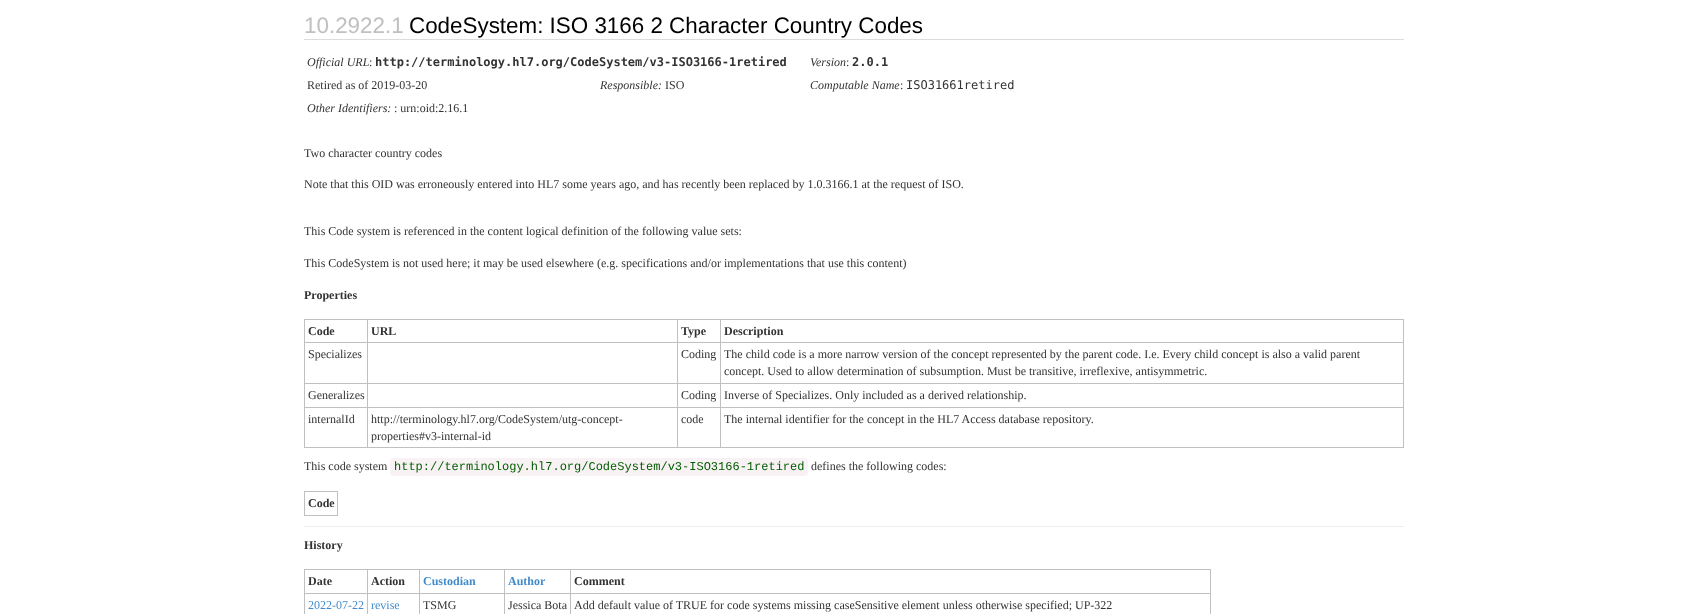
<svg xmlns="http://www.w3.org/2000/svg" width="1707" height="614">
	<rect width="100%" height="100%" fill="#FFFFFF" />
	<rect x="304" y="39" width="1100" height="1" fill="#DCDCDC" />
	<text x="304" y="33" font-family="Liberation Sans" font-size="22.4" fill="#C0C0C0">10.2922.1</text>
	<text x="409" y="33" font-family="Liberation Sans" font-size="22.4" fill="#000000">CodeSystem: ISO 3166 2 Character Country Codes</text>
	<text x="307" y="66" font-family="Liberation Serif" font-size="12" font-style="italic" fill="#333333">Official URL</text>
	<text x="369" y="66" font-family="Liberation Serif" font-size="12" fill="#333333">:</text>
	<text x="375" y="66" font-family="DejaVu Sans Mono" font-size="12" font-weight="700" fill="#333333">http://terminology.hl7.org/CodeSystem/v3-ISO3166-1retired</text>
	<text x="810" y="66" font-family="Liberation Serif" font-size="12" font-style="italic" fill="#333333">Version</text>
	<text x="846" y="66" font-family="Liberation Serif" font-size="12" fill="#333333">:</text>
	<text x="852" y="66" font-family="DejaVu Sans Mono" font-size="12" font-weight="700" fill="#333333">2.0.1</text>
	<text x="307" y="89" font-family="Liberation Serif" font-size="12" fill="#333333">Retired as of 2019-03-20</text>
	<text x="600" y="89" font-family="Liberation Serif" font-size="12" font-style="italic" fill="#333333">Responsible:</text>
	<text x="665" y="89" font-family="Liberation Serif" font-size="12" fill="#333333">ISO</text>
	<text x="810" y="89" font-family="Liberation Serif" font-size="12" font-style="italic" fill="#333333">Computable Name</text>
	<text x="900" y="89" font-family="Liberation Serif" font-size="12" fill="#333333">:</text>
	<text x="906" y="89" font-family="DejaVu Sans Mono" font-size="12" fill="#333333">ISO31661retired</text>
	<text x="307" y="112" font-family="Liberation Serif" font-size="12" font-style="italic" fill="#333333">Other Identifiers:</text>
	<g font-family="Liberation Serif" font-size="12" fill="#333333">
		<text x="394" y="112">: urn:oid:2.16.1</text>
		<text x="304" y="157">Two character country codes</text>
		<text x="304" y="188">Note that this OID was erroneously entered into HL7 some years ago, and has recently been replaced by 1.0.3166.1 at the request of ISO.</text>
		<text x="304" y="235">This Code system is referenced in the content logical definition of the following value sets:</text>
		<text x="304" y="267">This CodeSystem is not used here; it may be used elsewhere (e.g. specifications and/or implementations that use this content)</text>
	</g>
	<text x="304" y="299" font-family="Liberation Serif" font-size="12" font-weight="700" fill="#333333">Properties</text>
	<rect x="720" y="319" width="684" height="1" fill="#C0C0C0" />
	<rect x="720" y="342" width="684" height="1" fill="#C0C0C0" />
	<rect x="720" y="383" width="684" height="1" fill="#C0C0C0" />
	<rect x="720" y="407" width="684" height="1" fill="#C0C0C0" />
	<rect x="1403" y="407" width="1" height="41" fill="#C0C0C0" />
	<rect x="720" y="447" width="684" height="1" fill="#C0C0C0" />
	<rect x="720" y="407" width="1" height="41" fill="#C0C0C0" />
	<rect x="677" y="407" width="44" height="1" fill="#C0C0C0" />
	<rect x="720" y="383" width="1" height="25" fill="#C0C0C0" />
	<rect x="677" y="383" width="44" height="1" fill="#C0C0C0" />
	<rect x="720" y="342" width="1" height="42" fill="#C0C0C0" />
	<rect x="677" y="342" width="44" height="1" fill="#C0C0C0" />
	<rect x="720" y="319" width="1" height="24" fill="#C0C0C0" />
	<rect x="677" y="319" width="44" height="1" fill="#C0C0C0" />
	<rect x="677" y="447" width="44" height="1" fill="#C0C0C0" />
	<rect x="677" y="407" width="1" height="41" fill="#C0C0C0" />
	<rect x="367" y="407" width="311" height="1" fill="#C0C0C0" />
	<rect x="677" y="383" width="1" height="25" fill="#C0C0C0" />
	<rect x="367" y="383" width="311" height="1" fill="#C0C0C0" />
	<rect x="677" y="342" width="1" height="42" fill="#C0C0C0" />
	<rect x="367" y="342" width="311" height="1" fill="#C0C0C0" />
	<rect x="677" y="319" width="1" height="24" fill="#C0C0C0" />
	<rect x="367" y="319" width="311" height="1" fill="#C0C0C0" />
	<rect x="367" y="447" width="311" height="1" fill="#C0C0C0" />
	<rect x="367" y="407" width="1" height="41" fill="#C0C0C0" />
	<rect x="304" y="407" width="64" height="1" fill="#C0C0C0" />
	<rect x="367" y="383" width="1" height="25" fill="#C0C0C0" />
	<rect x="304" y="383" width="64" height="1" fill="#C0C0C0" />
	<rect x="367" y="342" width="1" height="42" fill="#C0C0C0" />
	<rect x="304" y="342" width="64" height="1" fill="#C0C0C0" />
	<rect x="367" y="319" width="1" height="24" fill="#C0C0C0" />
	<rect x="304" y="319" width="64" height="1" fill="#C0C0C0" />
	<rect x="304" y="447" width="64" height="1" fill="#C0C0C0" />
	<rect x="304" y="407" width="1" height="41" fill="#C0C0C0" />
	<rect x="304" y="383" width="1" height="25" fill="#C0C0C0" />
	<rect x="304" y="342" width="1" height="42" fill="#C0C0C0" />
	<rect x="304" y="319" width="1" height="24" fill="#C0C0C0" />
	<g font-family="Liberation Serif" font-size="12" font-weight="700" fill="#333333">
		<text x="308" y="335">Code</text>
		<text x="371" y="335">URL</text>
		<text x="681" y="335">Type</text>
	</g>
	<rect x="1403" y="383" width="1" height="25" fill="#C0C0C0" />
	<rect x="1403" y="342" width="1" height="42" fill="#C0C0C0" />
	<rect x="1403" y="319" width="1" height="24" fill="#C0C0C0" />
	<text x="724" y="335" font-family="Liberation Serif" font-size="12" font-weight="700" fill="#333333">Description</text>
	<g font-family="Liberation Serif" font-size="12" fill="#333333">
		<text x="308" y="358">Specializes</text>
		<text x="681" y="358">Coding</text>
		<text x="724" y="358">The child code is a more narrow version of the concept represented by the parent code. I.e. Every child concept is also a valid parent</text>
		<text x="724" y="375">concept. Used to allow determination of subsumption. Must be transitive, irreflexive, antisymmetric.</text>
		<text x="308" y="399">Generalizes</text>
		<text x="681" y="399">Coding</text>
		<text x="724" y="399">Inverse of Specializes. Only included as a derived relationship.</text>
		<text x="308" y="423">internalId</text>
		<text x="371" y="423">http://terminology.hl7.org/CodeSystem/utg-concept-</text>
		<text x="371" y="440">properties#v3-internal-id</text>
		<text x="681" y="423">code</text>
		<text x="724" y="423">The internal identifier for the concept in the HL7 Access database repository.</text>
		<text x="304" y="470">This code system</text>
	</g>
	<rect x="390" y="458" width="418" height="18" rx="4" fill="#F9F2F4" />
	<text x="394" y="470" font-family="Liberation Mono" font-size="12" fill="#005C00">http://terminology.hl7.org/CodeSystem/v3-ISO3166-1retired</text>
	<text x="811" y="470" font-family="Liberation Serif" font-size="12" fill="#333333">defines the following codes:</text>
	<rect x="304" y="491" width="34" height="1" fill="#C0C0C0" />
	<rect x="337" y="491" width="1" height="25" fill="#C0C0C0" />
	<rect x="304" y="515" width="34" height="1" fill="#C0C0C0" />
	<rect x="304" y="491" width="1" height="25" fill="#C0C0C0" />
	<text x="308" y="507" font-family="Liberation Serif" font-size="12" font-weight="700" fill="#333333">Code</text>
	<rect x="304" y="526" width="1100" height="1" fill="#EEEEEE" />
	<text x="304" y="549" font-family="Liberation Serif" font-size="12" font-weight="700" fill="#333333">History</text>
	<rect x="570" y="569" width="641" height="1" fill="#C0C0C0" />
	<rect x="570" y="593" width="641" height="1" fill="#C0C0C0" />
	<rect x="570" y="593" width="1" height="21" fill="#C0C0C0" />
	<rect x="504" y="593" width="67" height="1" fill="#C0C0C0" />
	<rect x="570" y="569" width="1" height="25" fill="#C0C0C0" />
	<rect x="504" y="569" width="67" height="1" fill="#C0C0C0" />
	<rect x="504" y="593" width="1" height="21" fill="#C0C0C0" />
	<rect x="419" y="593" width="86" height="1" fill="#C0C0C0" />
	<rect x="504" y="569" width="1" height="25" fill="#C0C0C0" />
	<rect x="419" y="569" width="86" height="1" fill="#C0C0C0" />
	<rect x="419" y="593" width="1" height="21" fill="#C0C0C0" />
	<rect x="367" y="593" width="53" height="1" fill="#C0C0C0" />
	<rect x="419" y="569" width="1" height="25" fill="#C0C0C0" />
	<rect x="367" y="569" width="53" height="1" fill="#C0C0C0" />
	<rect x="367" y="593" width="1" height="21" fill="#C0C0C0" />
	<rect x="304" y="593" width="64" height="1" fill="#C0C0C0" />
	<rect x="367" y="569" width="1" height="25" fill="#C0C0C0" />
	<rect x="304" y="569" width="64" height="1" fill="#C0C0C0" />
	<rect x="304" y="593" width="1" height="21" fill="#C0C0C0" />
	<rect x="304" y="569" width="1" height="25" fill="#C0C0C0" />
	<g font-family="Liberation Serif" font-size="12" font-weight="700" fill="#333333">
		<text x="308" y="585">Date</text>
		<text x="371" y="585">Action</text>
	</g>
	<g font-family="Liberation Serif" font-size="12" font-weight="700" fill="#428BCA">
		<text x="423" y="585">Custodian</text>
		<text x="508" y="585">Author</text>
	</g>
	<rect x="1210" y="593" width="1" height="21" fill="#C0C0C0" />
	<rect x="1210" y="569" width="1" height="25" fill="#C0C0C0" />
	<text x="574" y="585" font-family="Liberation Serif" font-size="12" font-weight="700" fill="#333333">Comment</text>
	<g font-family="Liberation Serif" font-size="12" fill="#428BCA">
		<text x="308" y="609">2022-07-22</text>
		<text x="371" y="609">revise</text>
	</g>
	<g font-family="Liberation Serif" font-size="12" fill="#333333">
		<text x="423" y="609">TSMG</text>
		<text x="508" y="609">Jessica Bota</text>
		<text x="574" y="609">Add default value of TRUE for code systems missing caseSensitive element unless otherwise specified; UP-322</text>
	</g>
</svg>
